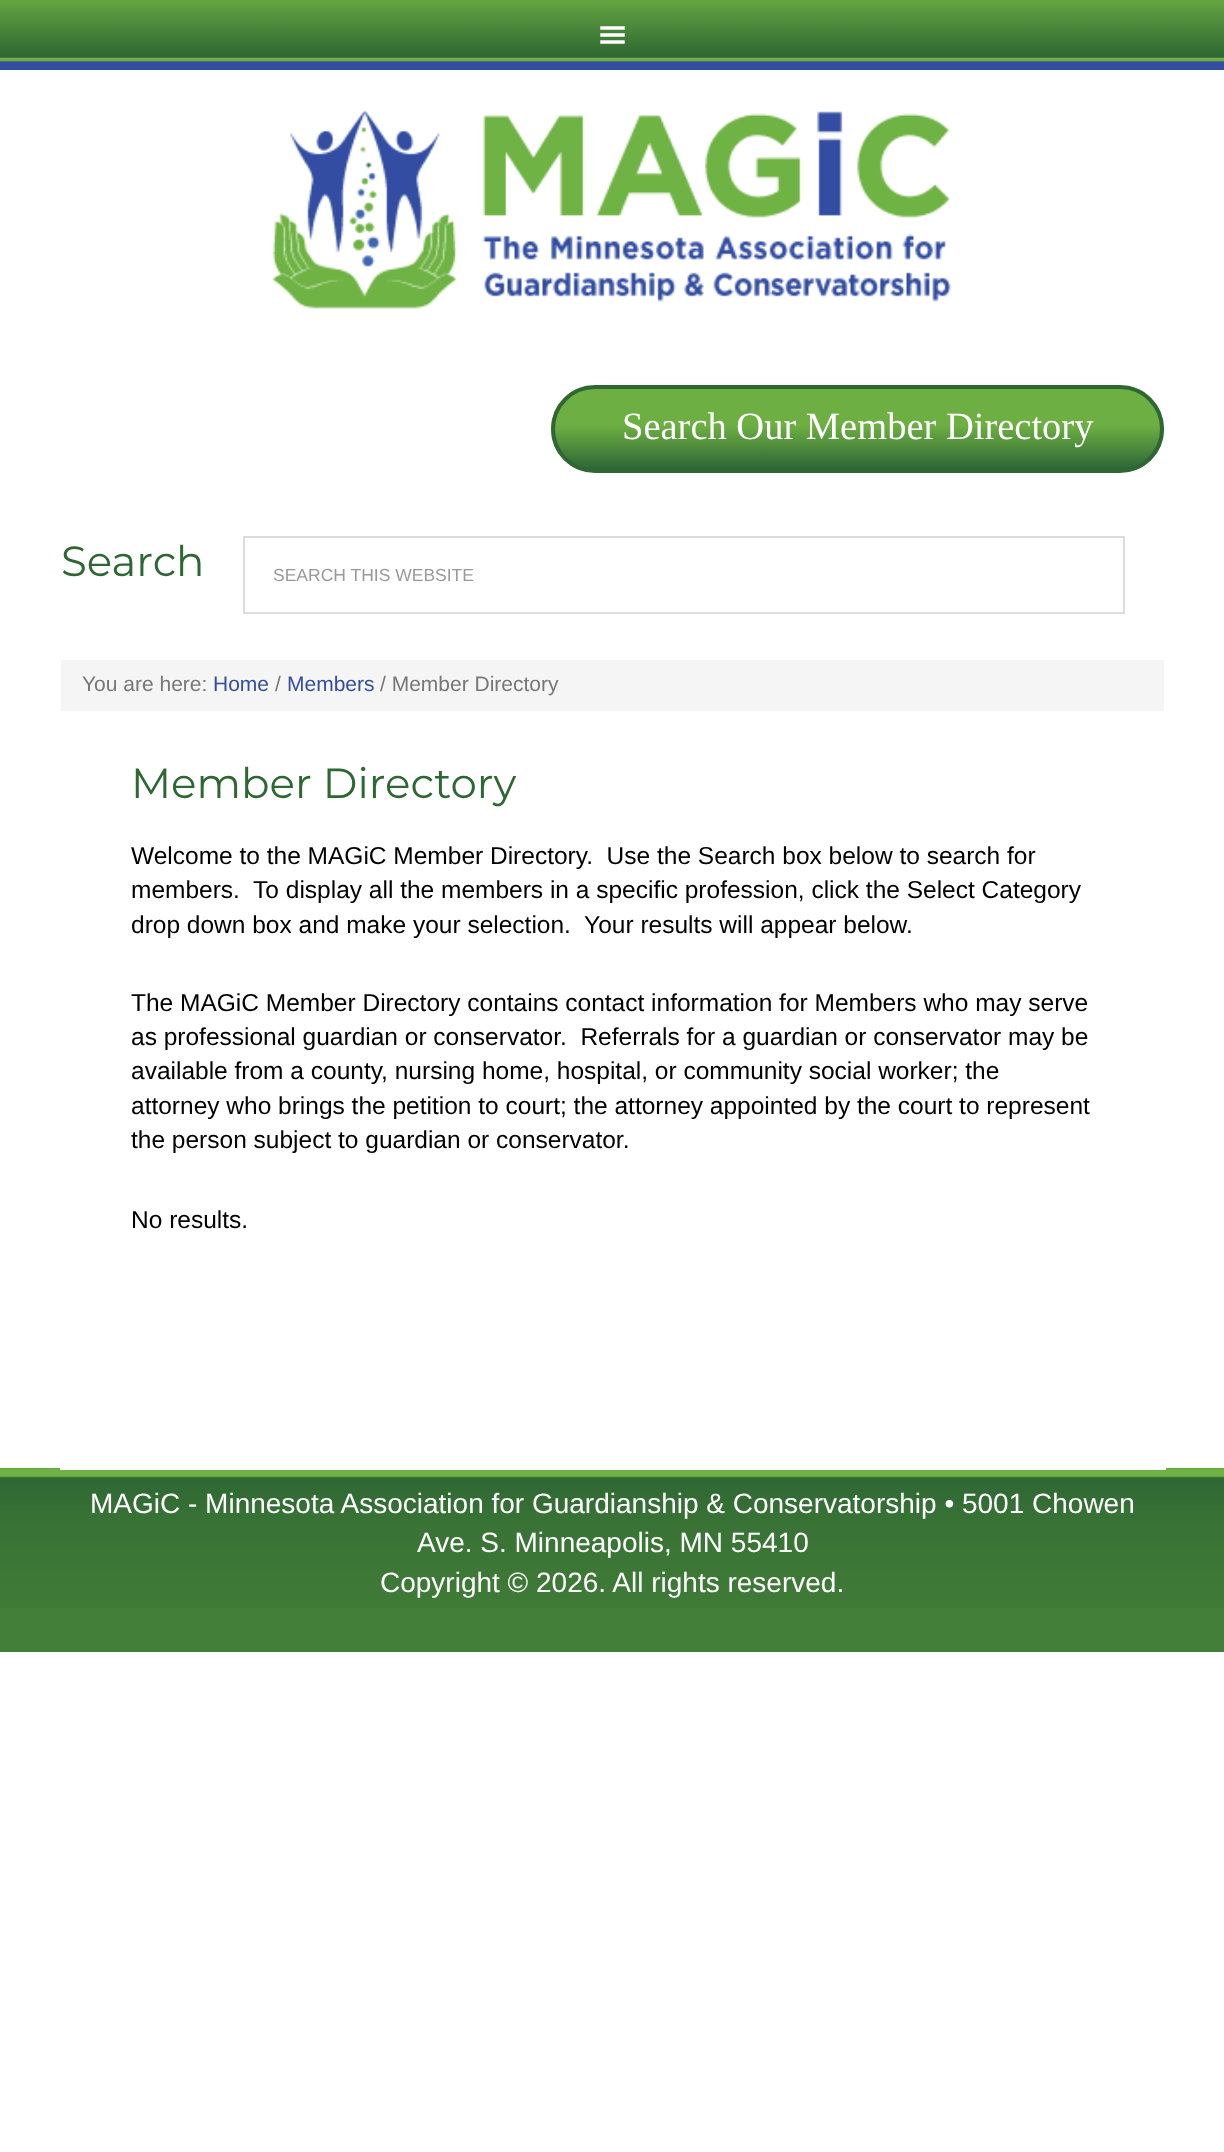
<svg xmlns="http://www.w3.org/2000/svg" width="1224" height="2152">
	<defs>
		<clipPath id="clip1"><rect x="551" y="385" width="613" height="88" rx="44" /></clipPath>
		<linearGradient id="g1" gradientUnits="userSpaceOnUse" x1="555" y1="389" x2="555" y2="469"><stop offset="0.45" stop-color="#6EAF43" /><stop offset="1" stop-color="#2E6736" /></linearGradient>
	</defs>
	<rect width="100%" height="100%" fill="#FFFFFF" />
	<image x="0" y="0" width="1224" height="70" href="assets/img1.png" />
	<image x="600" y="26" width="25" height="18" href="assets/img2.png" />
	<image x="272" y="110" width="679" height="199" href="assets/img3.png" />
	<g clip-path="url(#clip1)">
		<rect x="551" y="389" width="613" height="80" fill="url(#g1)" />
	</g>
	<rect x="553" y="387" width="609" height="84" rx="42" fill="none" stroke="#2E6733" stroke-width="4" />
	<text x="622" y="439" font-family="Liberation Serif" font-size="38.5" fill="#FFFFFF">Search Our Member Directory</text>
	<text x="61" y="576" font-family="Montserrat" font-size="42" fill="#2E6733">Search</text>
	<rect x="244" y="537" width="880" height="76" fill="none" stroke="#DDDDDD" stroke-width="2" />
	<text x="273" y="581" font-family="Liberation Sans" font-size="17.5" fill="#999999">SEARCH THIS WEBSITE</text>
	<rect x="0" y="1468" width="1224" height="184" fill="#437F38" />
	<image x="0" y="1468" width="1224" height="140" href="assets/img4.png" />
	<rect x="61" y="659" width="1104" height="810" fill="none" stroke="#FFFFFF" stroke-width="2" />
	<rect x="61" y="660" width="1103" height="51" fill="#F5F5F5" />
	<text x="82" y="691" font-family="Liberation Sans" font-size="21" fill="#777777">You are here:</text>
	<text x="213" y="691" font-family="Liberation Sans" font-size="21" fill="#334DA0">Home</text>
	<text x="275" y="691" font-family="Liberation Sans" font-size="21" fill="#777777">/</text>
	<text x="287" y="691" font-family="Liberation Sans" font-size="21" fill="#334DA0">Members</text>
	<text x="380" y="691" font-family="Liberation Sans" font-size="21" fill="#777777">/ Member Directory</text>
	<text x="131" y="798" font-family="Montserrat" font-size="42" fill="#2E6733">Member Directory</text>
	<g font-family="Liberation Sans" font-size="24.5" fill="#000000">
		<text x="131" y="864" xml:space="preserve">Welcome to the MAGiC Member Directory.  Use the Search box below to search for</text>
		<text x="131" y="898" xml:space="preserve">members.  To display all the members in a specific profession, click the Select Category</text>
		<text x="131" y="933" xml:space="preserve">drop down box and make your selection.  Your results will appear below.</text>
		<text x="131" y="1011">The MAGiC Member Directory contains contact information for Members who may serve</text>
		<text x="131" y="1045" xml:space="preserve">as professional guardian or conservator.  Referrals for a guardian or conservator may be</text>
		<text x="131" y="1079">available from a county, nursing home, hospital, or community social worker; the</text>
		<text x="131" y="1114">attorney who brings the petition to court; the attorney appointed by the court to represent</text>
		<text x="131" y="1148">the person subject to guardian or conservator.</text>
		<text x="131" y="1228">No results.</text>
	</g>
	<g font-family="Liberation Sans" font-size="28" fill="#FFFFFF">
		<text x="90" y="1513">MAGiC - Minnesota Association for Guardianship &amp; Conservatorship • 5001 Chowen</text>
		<text x="417" y="1552">Ave. S. Minneapolis, MN 55410</text>
		<text x="380" y="1592">Copyright © 2026. All rights reserved.</text>
	</g>
</svg>
